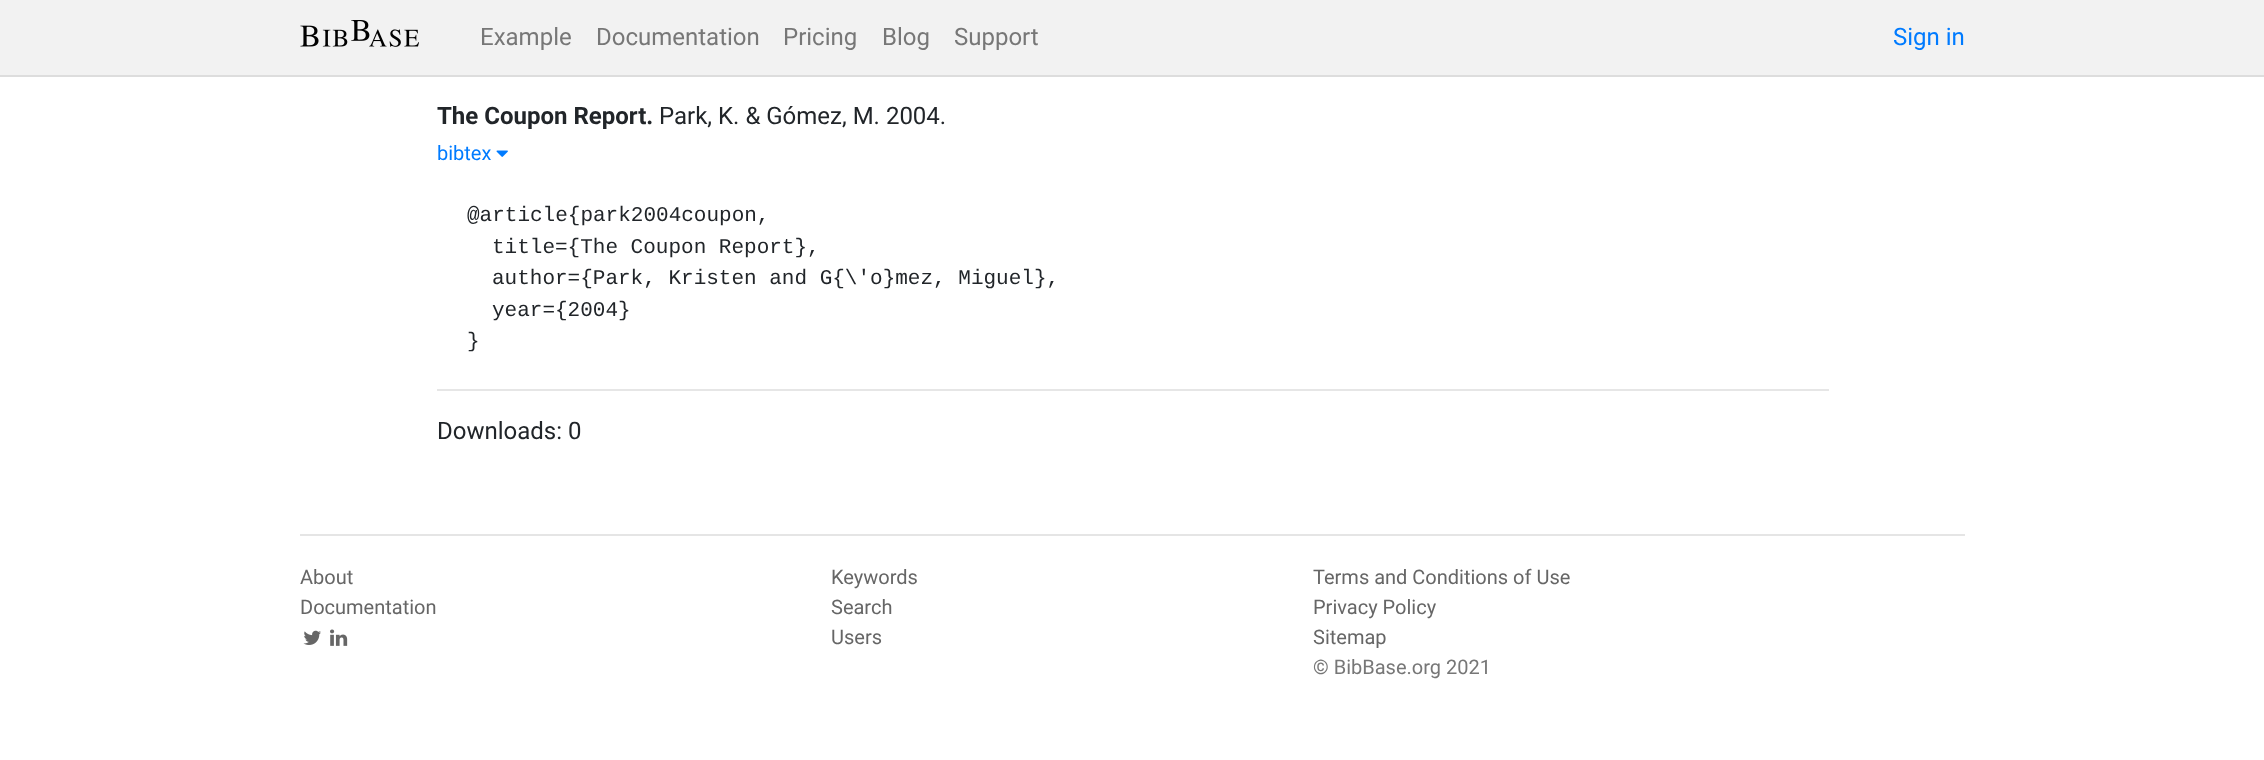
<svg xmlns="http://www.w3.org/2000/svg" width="2264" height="760">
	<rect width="100%" height="100%" fill="#FFFFFF" />
	<rect x="0" y="0" width="2264" height="75" fill="#F2F2F2" />
	<rect x="0" y="75" width="2264" height="2" fill="#DDDDDD" />
	<image x="300" y="20" width="119" height="27" href="assets/img1.png" />
	<g font-family="Roboto" font-size="24" fill="#777777">
		<text x="480" y="45">Example</text>
		<text x="596" y="45">Documentation</text>
		<text x="783" y="45">Pricing</text>
		<text x="882" y="45">Blog</text>
		<text x="954" y="45">Support</text>
	</g>
	<text x="1893" y="45" font-family="Roboto" font-size="24" fill="#007BFF">Sign in</text>
	<text x="437" y="124" font-family="Roboto" font-size="24" font-weight="700" fill="#212529">The Coupon Report.</text>
	<text x="659" y="124" font-family="Roboto" font-size="24" fill="#212529">Park, K. &amp; Gómez, M. 2004.</text>
	<text x="437" y="160" font-family="Roboto" font-size="20" fill="#007BFF">bibtex</text>
	<image x="496" y="150" width="12" height="7" href="assets/img2.png" />
	<g font-family="Liberation Mono" font-size="21" fill="#212529">
		<text x="467" y="221">@article{park2004coupon,</text>
		<text x="492" y="253">title={The Coupon Report},</text>
		<text x="492" y="284">author={Park, Kristen and G{\'o}mez, Miguel},</text>
		<text x="492" y="316">year={2004}</text>
		<text x="467" y="347">}</text>
	</g>
	<rect x="437" y="389" width="1392" height="2" fill="#E6E6E6" />
	<text x="437" y="439" font-family="Roboto" font-size="24" fill="#212529">Downloads: 0</text>
	<rect x="300" y="534" width="1665" height="2" fill="#E5E5E5" />
	<g font-family="Roboto" font-size="20" fill="#666666">
		<text x="300" y="584">About</text>
		<text x="300" y="614">Documentation</text>
	</g>
	<image x="303" y="630" width="18" height="15" href="assets/img3.png" />
	<image x="330" y="629" width="18" height="17" href="assets/img4.png" />
	<g font-family="Roboto" font-size="20" fill="#666666">
		<text x="831" y="584">Keywords</text>
		<text x="831" y="614">Search</text>
		<text x="831" y="644">Users</text>
		<text x="1313" y="584">Terms and Conditions of Use</text>
		<text x="1313" y="614">Privacy Policy</text>
		<text x="1313" y="644">Sitemap</text>
	</g>
	<text x="1313" y="674" font-family="Roboto" font-size="20" fill="#777777">© BibBase.org 2021</text>
</svg>
